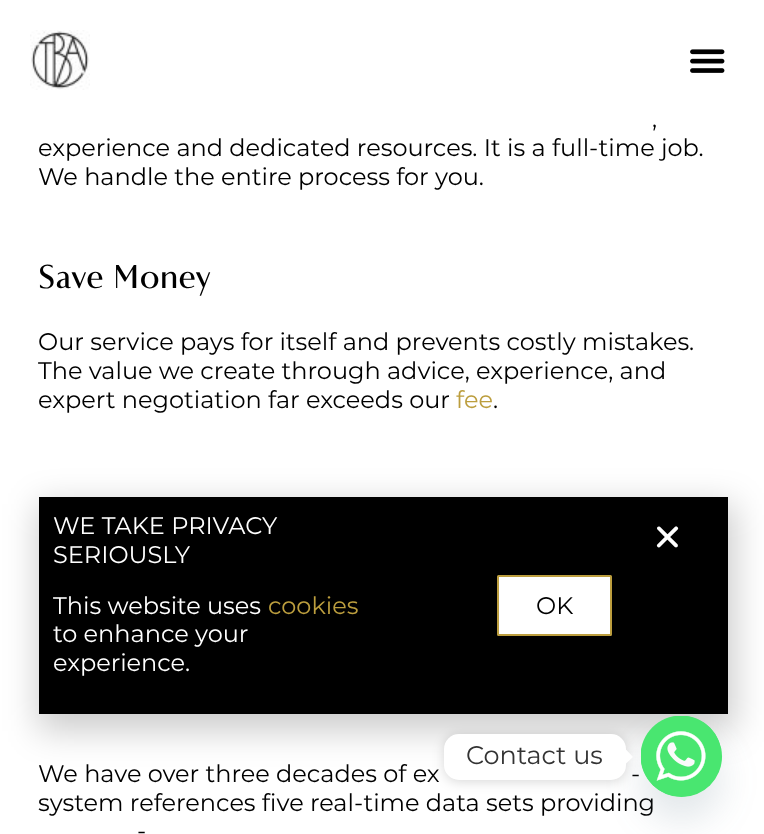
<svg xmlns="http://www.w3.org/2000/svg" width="764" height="834">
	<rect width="100%" height="100%" fill="#FFFFFF" />
	<image x="30" y="30" width="60" height="60" href="assets/img1.png" />
	<image x="690" y="49" width="35" height="24" href="assets/img2.png" />
	<g font-family="Montserrat" font-size="24" font-weight="100" fill="#000000">
		<text x="652" y="127">,</text>
		<text x="38" y="156">experience and dedicated resources. It is a full-time job.</text>
		<text x="38" y="185">We handle the entire process for you.</text>
	</g>
	<text x="38" y="288" font-family="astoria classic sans" font-size="33" fill="#000000">Save Money</text>
	<g font-family="Montserrat" font-size="24" font-weight="100" fill="#000000">
		<text x="38" y="350">Our service pays for itself and prevents costly mistakes.</text>
		<text x="38" y="379">The value we create through advice, experience, and</text>
		<text x="38" y="408">expert negotiation far exceeds our</text>
	</g>
	<text x="456" y="408" font-family="Montserrat" font-size="24" font-weight="100" fill="#BC9E3E">fee</text>
	<g font-family="Montserrat" font-size="24" font-weight="100" fill="#000000">
		<text x="493" y="408">.</text>
		<text x="38" y="782">We have over three decades of ex</text>
		<text x="631" y="782">-</text>
		<text x="38" y="811">system references five real-time data sets providing</text>
		<text x="137" y="839">-</text>
	</g>
	<rect x="38" y="504" width="697" height="227" fill="#000000" fill-opacity="0.2" filter="blur(17px)" />
	<rect x="39" y="497" width="689" height="217" fill="#000000" />
	<g font-family="Montserrat" font-size="24" font-weight="100" fill="#FFFFFF">
		<text x="53" y="534">WE TAKE PRIVACY</text>
		<text x="53" y="563">SERIOUSLY</text>
		<text x="53" y="614">This website uses</text>
	</g>
	<text x="268" y="614" font-family="Montserrat" font-size="24" font-weight="100" fill="#BC9E3E">cookies</text>
	<g font-family="Montserrat" font-size="24" font-weight="100" fill="#FFFFFF">
		<text x="53" y="642">to enhance your</text>
		<text x="53" y="671">experience.</text>
	</g>
	<rect x="498" y="576" width="113" height="59" rx="0.5" fill="#FFFFFF" stroke="#BC9E3E" stroke-width="2" />
	<text x="536" y="614" font-family="Montserrat" font-size="24" font-weight="100" fill="#000000">OK</text>
	<image x="656" y="526" width="23" height="22" href="assets/img3.png" />
	<rect x="641" y="740" width="81" height="81" rx="40.5" fill="#49687E" fill-opacity="0.16" filter="blur(18px)" />
	<circle cx="681.5" cy="756.5" r="40.5" fill="#49E670" />
	<image x="641" y="716" width="81" height="81" href="assets/img4.png" />
	<rect x="444" y="735" width="182" height="47" rx="15" fill="#000000" fill-opacity="0.15" filter="blur(6px)" />
	<rect x="444" y="734" width="182" height="46" rx="15" fill="#FFFFFF" />
	<text x="466" y="764" font-family="Montserrat" font-size="25.5" font-weight="100" fill="#333333">Contact us</text>
	<path d="M625.5 764V749L633 757Z" fill="#FFFFFF" />
</svg>
